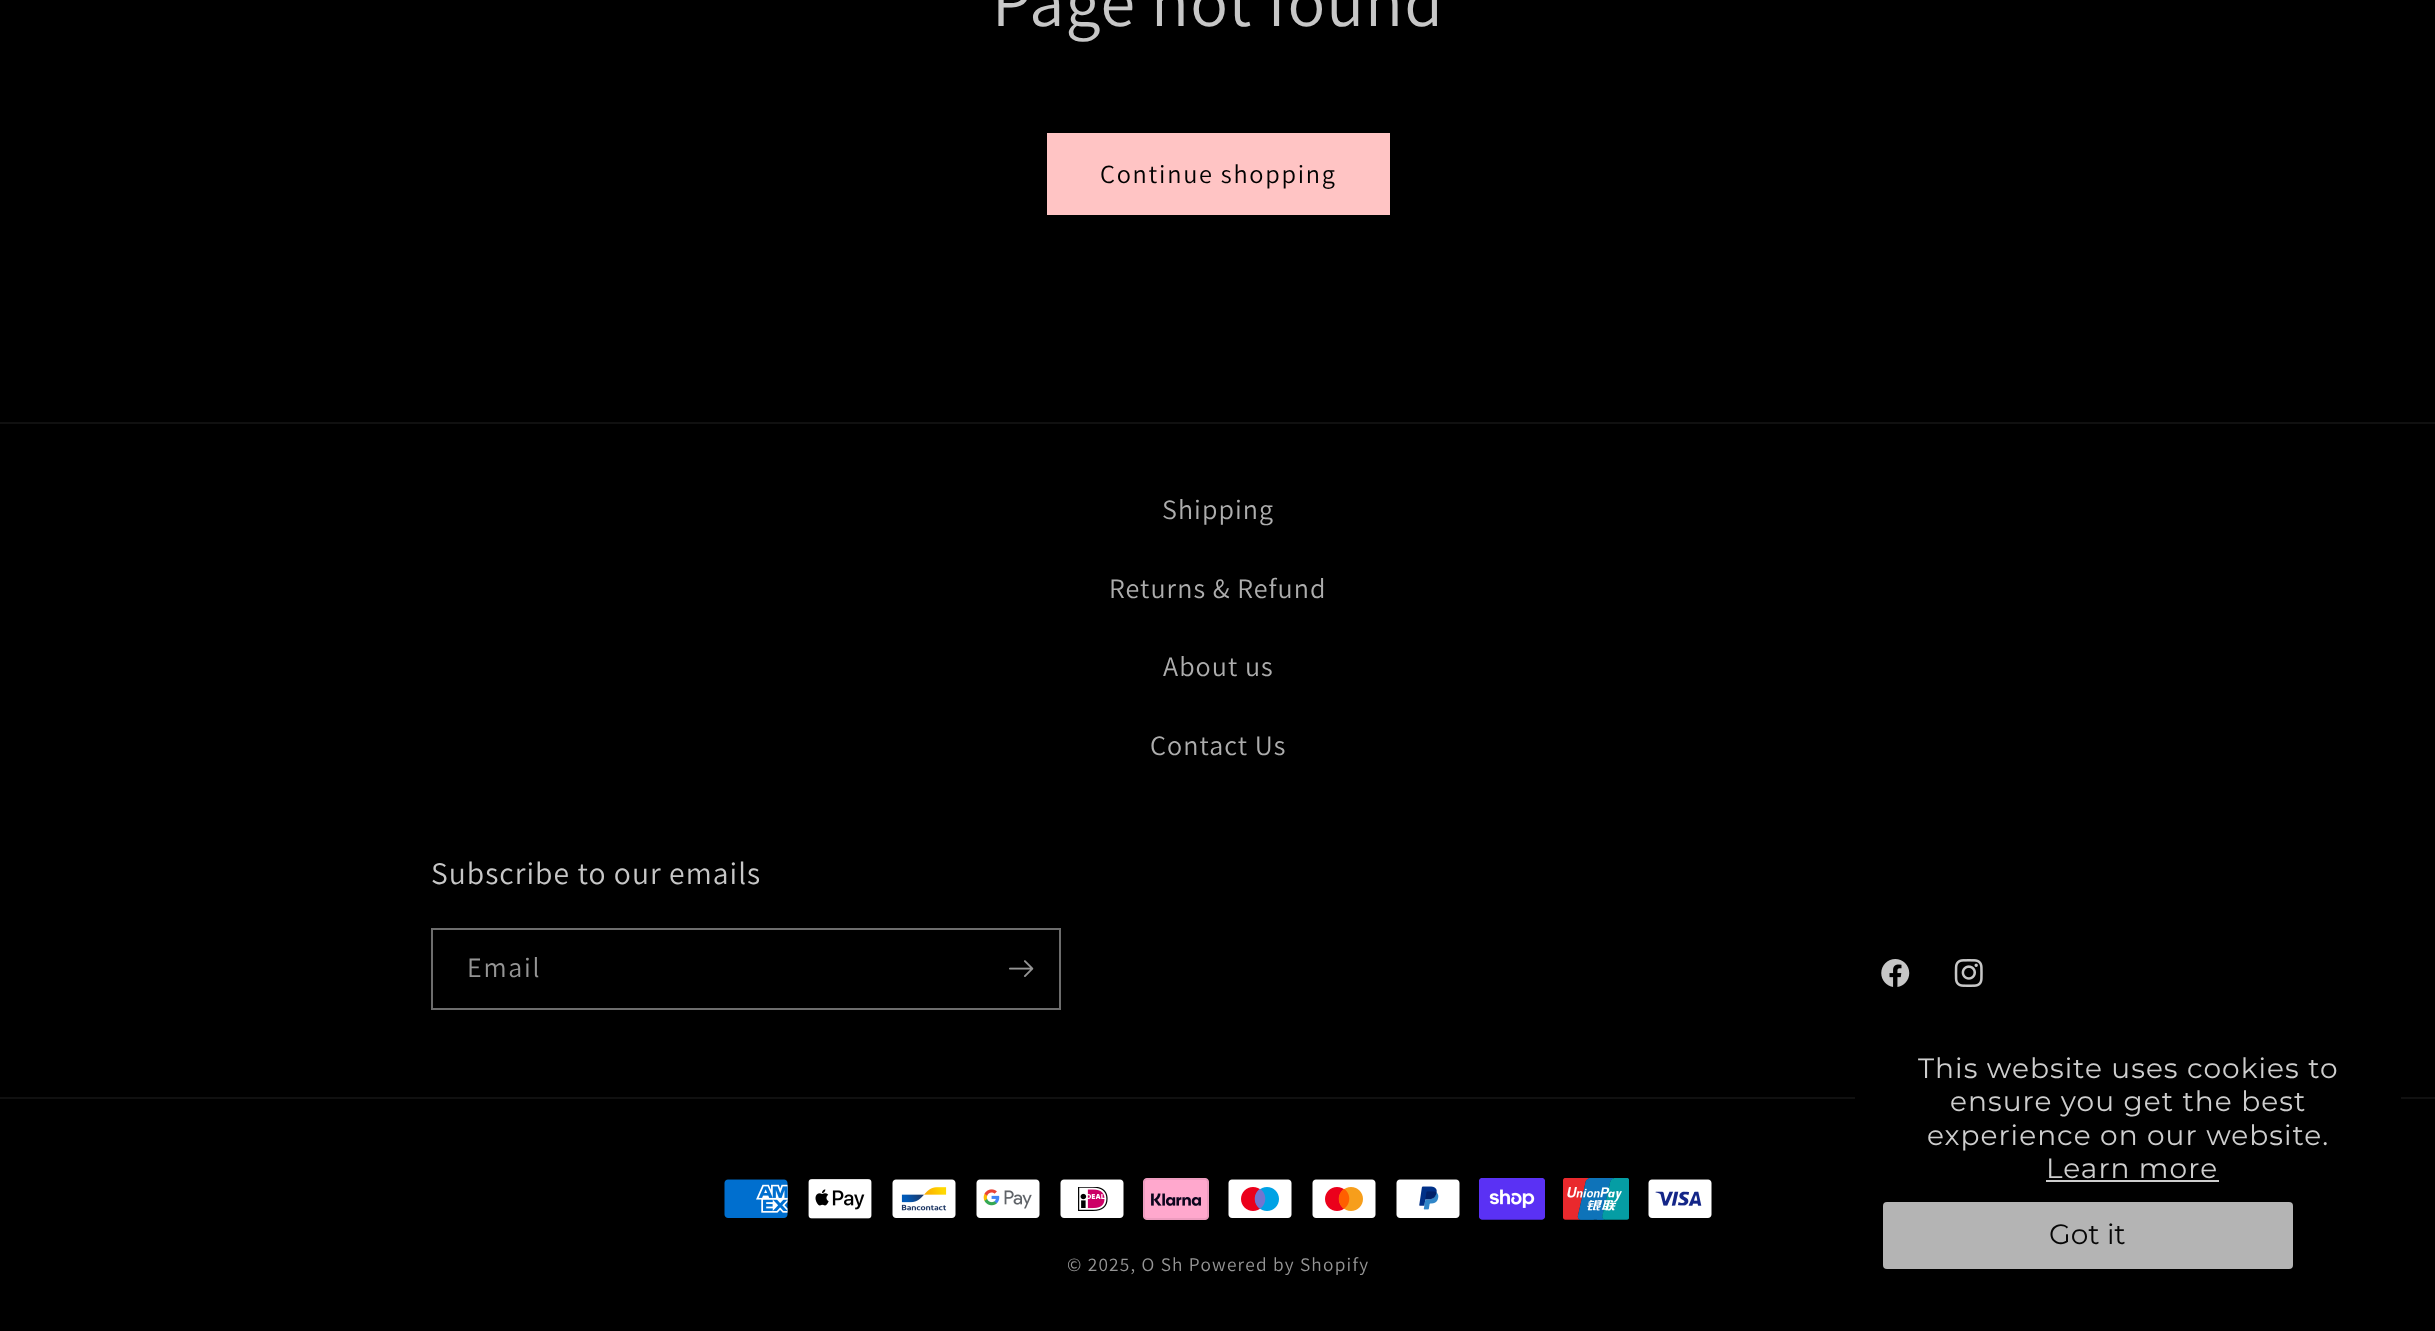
<svg xmlns="http://www.w3.org/2000/svg" width="2435" height="1331">
	<rect width="100%" height="100%" fill="#000000" />
	<text x="992" y="26" font-family="Assistant" font-size="70" letter-spacing="1.05" fill="#C7C7C7">Page not found</text>
	<rect x="1047" y="133" width="343" height="82" fill="#FFC4C4" />
	<text x="1100" y="183" font-family="Assistant" font-size="26.25" letter-spacing="1.75" fill="#000000">Continue shopping</text>
	<rect x="0" y="422" width="2435" height="2" fill="#101010" />
	<g font-family="Assistant" font-size="28" letter-spacing="1.05" fill="#ADADAD">
		<text x="1162" y="519">Shipping</text>
		<text x="1109" y="598">Returns &amp; Refund</text>
		<text x="1163" y="676">About us</text>
		<text x="1150" y="755">Contact Us</text>
	</g>
	<text x="431" y="884" font-family="Assistant" font-size="31.5" letter-spacing="1.05" fill="#C7C7C7">Subscribe to our emails</text>
	<rect x="432" y="929" width="628" height="80" fill="none" stroke="#6D6D6D" stroke-width="2" />
	<text x="467" y="977" font-family="Assistant" font-size="28" letter-spacing="1.75" fill="#959595">Email</text>
	<image x="1009" y="960" width="25" height="17" href="assets/img1.png" />
	<image x="1881" y="959" width="29" height="28" href="assets/img2.png" />
	<image x="1954" y="959" width="29" height="28" href="assets/img3.png" />
	<rect x="0" y="1097" width="2435" height="2" fill="#101010" />
	<image x="724" y="1179" width="64" height="39" href="assets/img4.png" />
	<image x="808" y="1179" width="64" height="40" href="assets/img5.png" />
	<image x="892" y="1179" width="64" height="39" href="assets/img6.png" />
	<image x="976" y="1179" width="64" height="39" href="assets/img7.png" />
	<image x="1060" y="1179" width="64" height="39" href="assets/img8.png" />
	<image x="1143" y="1178" width="66" height="42" href="assets/img9.png" />
	<image x="1228" y="1179" width="64" height="39" href="assets/img10.png" />
	<image x="1312" y="1179" width="64" height="39" href="assets/img11.png" />
	<image x="1396" y="1179" width="64" height="39" href="assets/img12.png" />
	<image x="1479" y="1178" width="66" height="42" href="assets/img13.png" />
	<image x="1563" y="1178" width="66" height="42" href="assets/img14.png" />
	<image x="1648" y="1179" width="64" height="39" href="assets/img15.png" />
	<text x="1067" y="1271" font-family="Assistant" font-size="19.25" letter-spacing="1.25" fill="#959595">© 2025, O Sh Powered by Shopify</text>
	<rect x="1855" y="1024" width="546" height="273" rx="9" fill="#000000" />
	<g font-family="Montserrat" font-size="28" letter-spacing="1.05" fill="#CECECE">
		<text x="1918" y="1078">This website uses cookies to</text>
		<text x="1950" y="1111">ensure you get the best</text>
		<text x="1927" y="1145">experience on our website.</text>
		<text x="2046" y="1178">Learn more</text>
	</g>
	<rect x="2046" y="1180" width="173" height="2" fill="#CECECE" />
	<rect x="1883" y="1202" width="410" height="67" rx="4" fill="#B4B4B4" />
	<text x="2049" y="1244" font-family="Montserrat" font-size="28" fill="#060606">Got it</text>
</svg>
